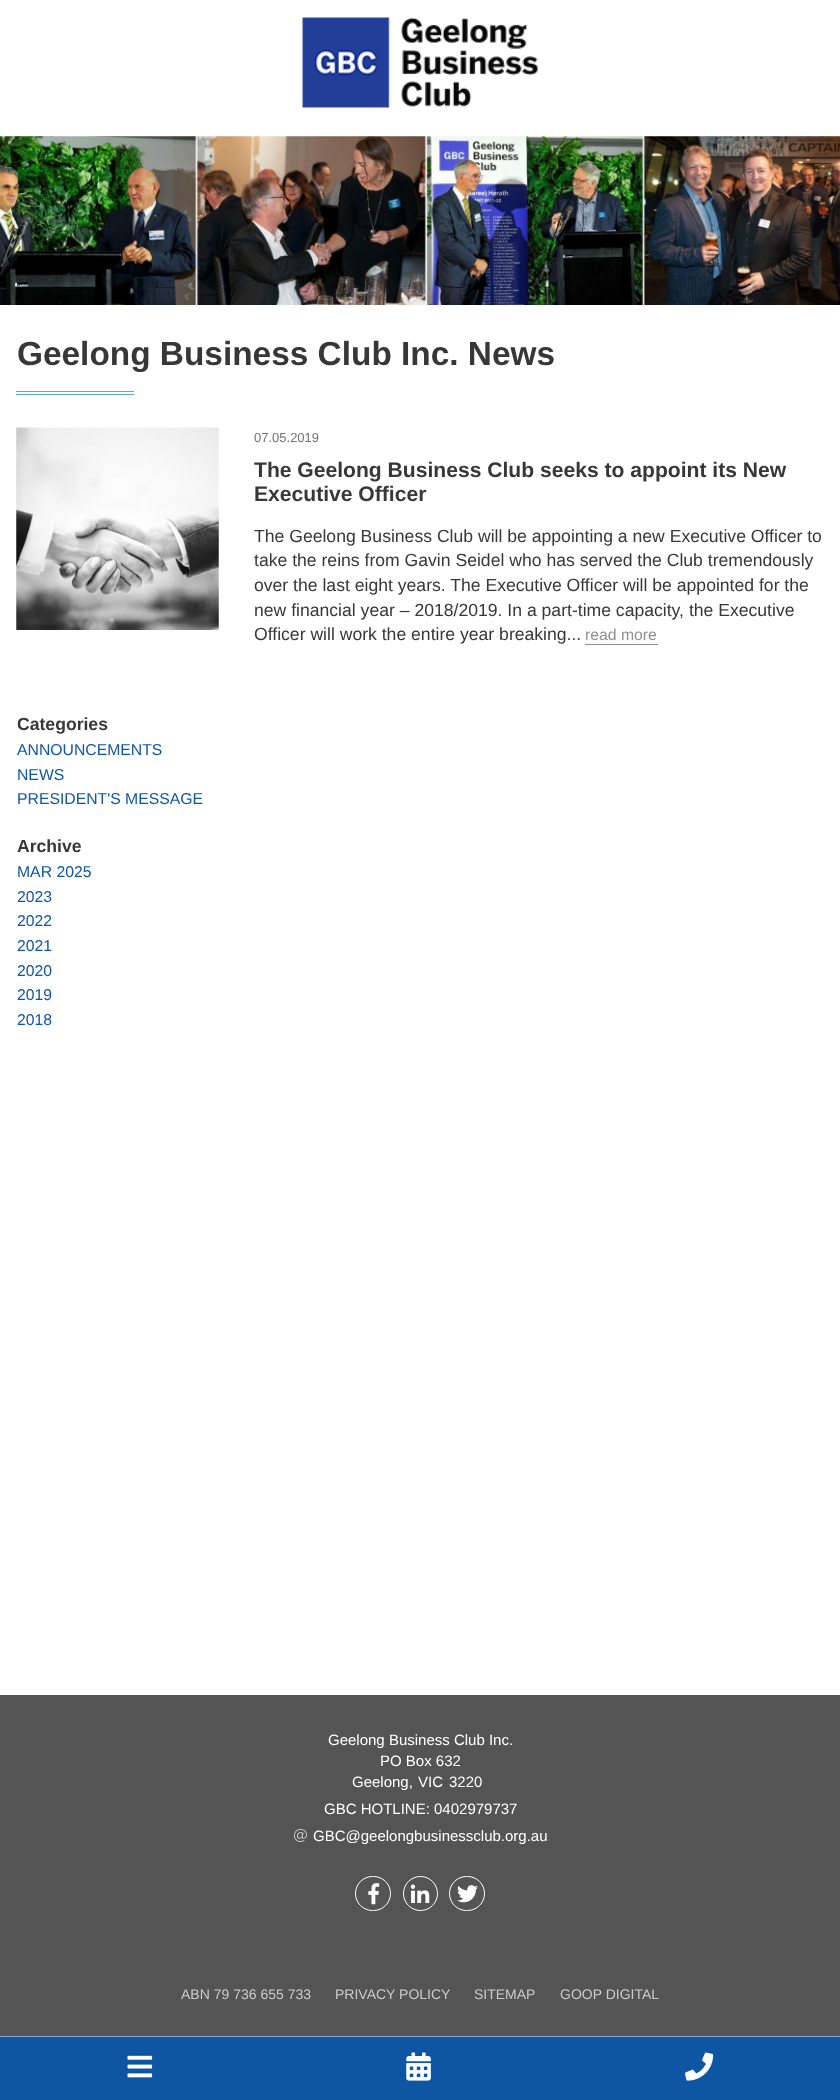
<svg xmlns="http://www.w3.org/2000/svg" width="840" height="2100">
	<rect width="100%" height="100%" fill="#FFFFFF" />
	<image x="302" y="17" width="236" height="91" href="assets/img1.png" />
	<image x="0" y="136" width="840" height="169" href="assets/img2.png" />
	<text x="17" y="365" font-family="Liberation Sans" font-size="33.4" font-weight="700" fill="#373737">Geelong Business Club Inc. News</text>
	<rect x="16" y="391" width="118" height="1" fill="#5BA3F1" />
	<rect x="16" y="394" width="118" height="1" fill="#5BA3F1" />
	<image x="16" y="427" width="203" height="203" href="assets/img3.png" />
	<text x="254" y="442" font-family="Liberation Sans" font-size="13" fill="#737373">07.05.2019</text>
	<g font-family="Liberation Sans" font-size="21.1" font-weight="700" fill="#373737">
		<text x="254" y="477">The Geelong Business Club seeks to appoint its New</text>
		<text x="254" y="501">Executive Officer</text>
	</g>
	<g font-family="Liberation Sans" font-size="17.6" fill="#373737">
		<text x="254" y="542">The Geelong Business Club will be appointing a new Executive Officer to</text>
		<text x="254" y="566">take the reins from Gavin Seidel who has served the Club tremendously</text>
		<text x="254" y="591">over the last eight years. The Executive Officer will be appointed for the</text>
		<text x="254" y="616">new financial year – 2018/2019. In a part-time capacity, the Executive</text>
		<text x="254" y="640">Officer will work the entire year breaking...</text>
	</g>
	<text x="585" y="640" font-family="Liberation Sans" font-size="15.75" fill="#8F8F8F">read more</text>
	<rect x="585" y="644" width="73" height="1" fill="#8F8F8F" />
	<text x="17" y="730" font-family="Liberation Sans" font-size="17.6" font-weight="700" fill="#373737">Categories</text>
	<g font-family="Liberation Sans" font-size="15.75" fill="#0E56A4">
		<text x="17" y="755">ANNOUNCEMENTS</text>
		<text x="17" y="780">NEWS</text>
		<text x="17" y="804">PRESIDENT'S MESSAGE</text>
	</g>
	<text x="17" y="852" font-family="Liberation Sans" font-size="17.6" font-weight="700" fill="#373737">Archive</text>
	<g font-family="Liberation Sans" font-size="15.75" fill="#0E56A4">
		<text x="17" y="877">MAR 2025</text>
		<text x="17" y="902">2023</text>
		<text x="17" y="926">2022</text>
		<text x="17" y="951">2021</text>
		<text x="17" y="976">2020</text>
		<text x="17" y="1000">2019</text>
		<text x="17" y="1025">2018</text>
	</g>
	<rect x="0" y="1695" width="840" height="341" fill="#545454" />
	<g font-family="Liberation Sans" font-size="15" fill="#FFFFFF">
		<text x="328" y="1745">Geelong Business Club Inc.</text>
		<text x="380" y="1766">PO Box 632</text>
		<text x="352" y="1787">Geelong,</text>
		<text x="418" y="1787">VIC</text>
		<text x="449" y="1787">3220</text>
		<text x="324" y="1814">GBC HOTLINE: 0402979737</text>
	</g>
	<image x="294" y="1829" width="13" height="13" href="assets/img4.png" />
	<text x="313" y="1841" font-family="Liberation Sans" font-size="15" fill="#FFFFFF">GBC@geelongbusinessclub.org.au</text>
	<rect x="355.5" y="1876.5" width="35" height="34" rx="17" fill="none" stroke="#FFFFFF" />
	<image x="368" y="1883" width="12" height="22" href="assets/img5.png" />
	<circle cx="420.5" cy="1893.5" r="17" fill="none" stroke="#FFFFFF" />
	<image x="410" y="1884" width="20" height="19" href="assets/img6.png" />
	<rect x="449.5" y="1876.5" width="35" height="34" rx="17" fill="none" stroke="#FFFFFF" />
	<image x="457" y="1885" width="21" height="18" href="assets/img7.png" />
	<g font-family="Liberation Sans" font-size="14" fill="#CCCCCC">
		<text x="181" y="1999">ABN 79 736 655 733</text>
		<text x="335" y="1999">PRIVACY POLICY</text>
		<text x="474" y="1999">SITEMAP</text>
		<text x="560" y="1999">GOOP DIGITAL</text>
	</g>
	<rect x="0" y="2037" width="840" height="63" fill="#0E56A4" />
	<rect x="0" y="2036" width="840" height="1" fill="#87ABD2" />
	<image x="127" y="2055" width="26" height="23" href="assets/img8.png" />
	<image x="406" y="2052" width="25" height="29" href="assets/img9.png" />
	<image x="685" y="2052" width="29" height="29" href="assets/img10.png" />
</svg>
